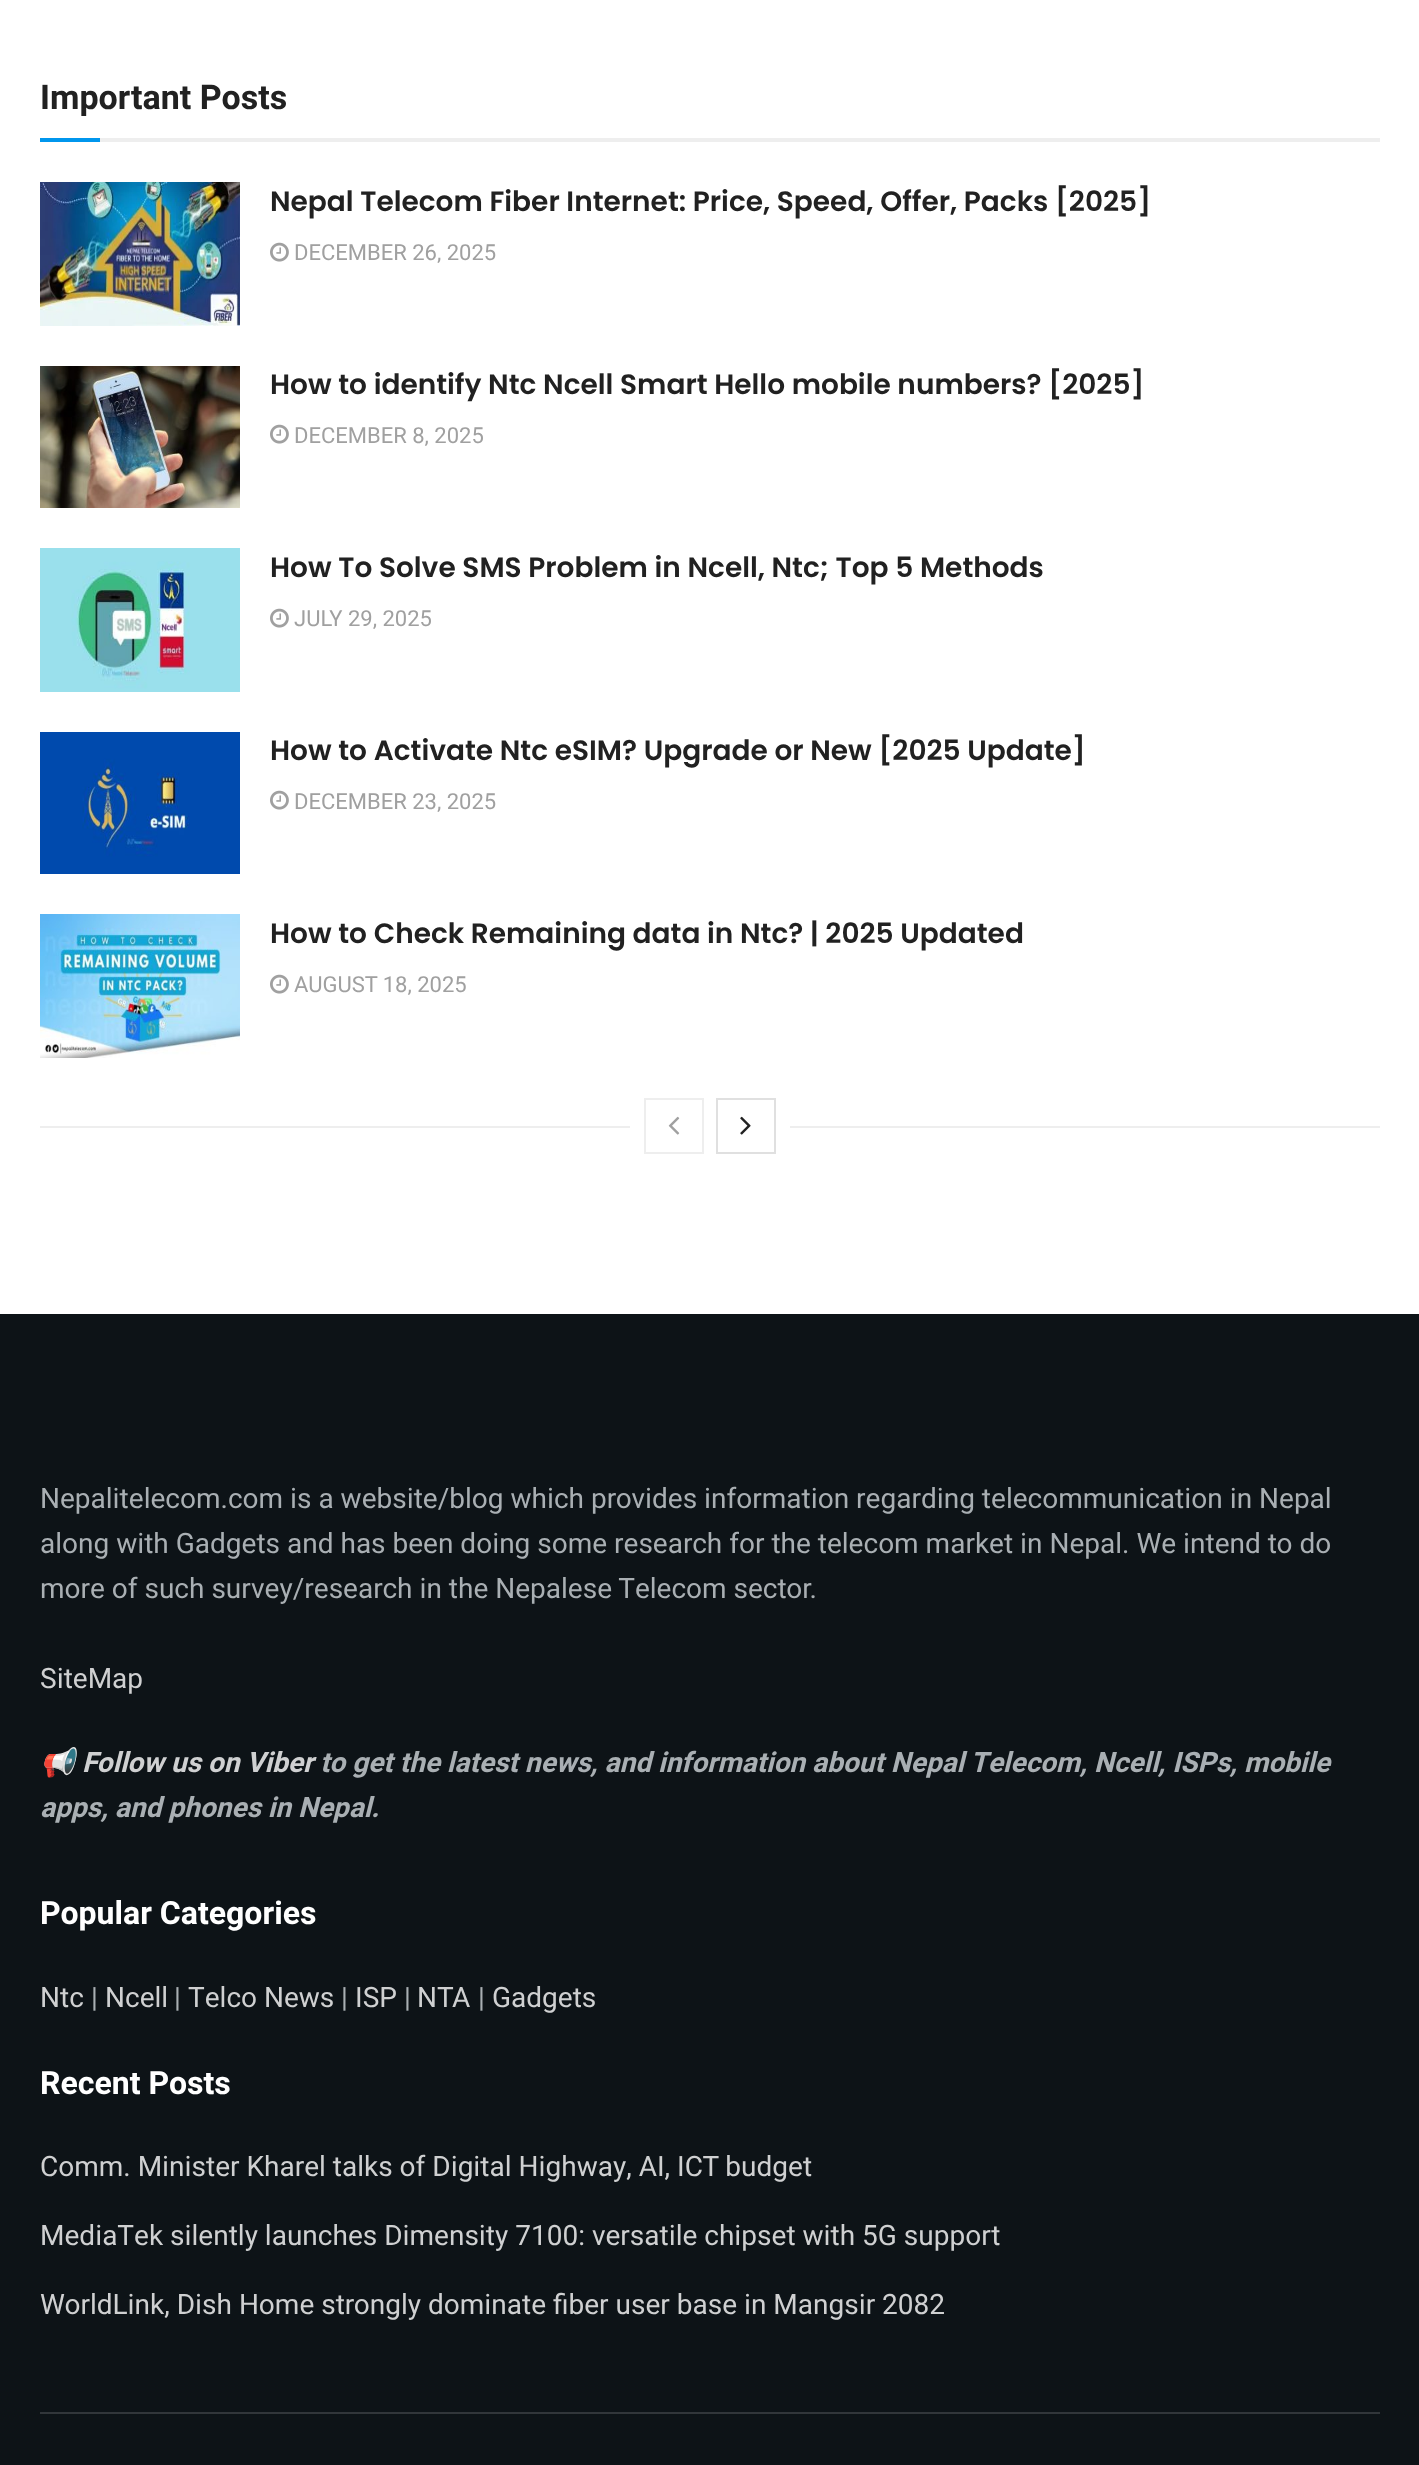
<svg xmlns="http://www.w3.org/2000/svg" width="1419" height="2465">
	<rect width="100%" height="100%" fill="#FFFFFF" />
	<rect x="100" y="138" width="1280" height="4" fill="#EEEEEE" />
	<text x="40" y="109" font-family="Heebo" font-size="34" font-weight="700" fill="#212121">Important Posts</text>
	<rect x="40" y="138" width="60" height="4" fill="#0096ED" />
	<image x="40" y="182" width="200" height="144" href="assets/img1.png" />
	<text x="270" y="211" font-family="Poppins" font-size="28" font-weight="600" fill="#212121">Nepal Telecom Fiber Internet: Price, Speed, Offer, Packs [2025]</text>
	<image x="270" y="242" width="19" height="20" href="assets/img2.png" />
	<text x="294" y="260" font-family="Heebo" font-size="22" fill="#A0A0A0">DECEMBER 26, 2025</text>
	<image x="40" y="366" width="200" height="142" href="assets/img3.png" />
	<text x="270" y="394" font-family="Poppins" font-size="28" font-weight="600" fill="#212121">How to identify Ntc Ncell Smart Hello mobile numbers? [2025]</text>
	<image x="270" y="424" width="19" height="20" href="assets/img2.png" />
	<text x="294" y="443" font-family="Heebo" font-size="22" fill="#A0A0A0">DECEMBER 8, 2025</text>
	<image x="40" y="548" width="200" height="144" href="assets/img4.png" />
	<text x="270" y="577" font-family="Poppins" font-size="28" font-weight="600" fill="#212121">How To Solve SMS Problem in Ncell, Ntc; Top 5 Methods</text>
	<image x="270" y="608" width="19" height="20" href="assets/img2.png" />
	<text x="294" y="626" font-family="Heebo" font-size="22" fill="#A0A0A0">JULY 29, 2025</text>
	<image x="40" y="732" width="200" height="142" href="assets/img5.png" />
	<text x="270" y="760" font-family="Poppins" font-size="28" font-weight="600" fill="#212121">How to Activate Ntc eSIM? Upgrade or New [2025 Update]</text>
	<image x="270" y="790" width="19" height="20" href="assets/img2.png" />
	<text x="294" y="809" font-family="Heebo" font-size="22" fill="#A0A0A0">DECEMBER 23, 2025</text>
	<image x="40" y="914" width="200" height="144" href="assets/img6.png" />
	<text x="270" y="943" font-family="Poppins" font-size="28" font-weight="600" fill="#212121">How to Check Remaining data in Ntc? | 2025 Updated</text>
	<image x="270" y="974" width="19" height="20" href="assets/img2.png" />
	<text x="294" y="992" font-family="Heebo" font-size="22" fill="#A0A0A0">AUGUST 18, 2025</text>
	<rect x="40" y="1126" width="590" height="2" fill="#EEEEEE" />
	<rect x="645" y="1099" width="58" height="54" fill="none" stroke="#EEEEEE" stroke-width="2" />
	<image x="668" y="1116" width="12" height="19" href="assets/img7.png" />
	<rect x="717" y="1099" width="58" height="54" fill="none" stroke="#E0E0E0" stroke-width="2" />
	<image x="740" y="1116" width="11" height="19" href="assets/img8.png" />
	<rect x="790" y="1126" width="590" height="2" fill="#EEEEEE" />
	<rect x="0" y="1314" width="1419" height="1151" fill="#0D1317" />
	<g font-family="Heebo" font-size="28" fill="#A9AFB3">
		<text x="40" y="1508">Nepalitelecom.com is a website/blog which provides information regarding telecommunication in Nepal</text>
		<text x="40" y="1553">along with Gadgets and has been doing some research for the telecom market in Nepal. We intend to do</text>
		<text x="40" y="1598">more of such survey/research in the Nepalese Telecom sector.</text>
	</g>
	<text x="40" y="1688" font-family="Heebo" font-size="28" fill="#CFD0D1">SiteMap</text>
	<text x="40" y="1772" font-family="Noto Color Emoji" font-size="28" font-weight="700" font-style="italic" fill="#A9AFB3">📢</text>
	<text x="82" y="1772" font-family="Heebo" font-size="28" font-weight="700" font-style="italic" fill="#CFD0D1">Follow us on Viber</text>
	<g font-family="Heebo" font-size="28" font-weight="700" font-style="italic" fill="#A9AFB3">
		<text x="320" y="1772">to get the latest news, and information about Nepal Telecom, Ncell, ISPs, mobile</text>
		<text x="40" y="1817">apps, and phones in Nepal.</text>
	</g>
	<text x="40" y="1924" font-family="Heebo" font-size="32" font-weight="700" fill="#FFFFFF">Popular Categories</text>
	<text x="40" y="2007" font-family="Heebo" font-size="28" fill="#CFD0D1">Ntc</text>
	<text x="91" y="2007" font-family="Heebo" font-size="28" fill="#A9AFB3">|</text>
	<text x="105" y="2007" font-family="Heebo" font-size="28" fill="#CFD0D1">Ncell</text>
	<text x="174" y="2007" font-family="Heebo" font-size="28" fill="#A9AFB3">|</text>
	<text x="188" y="2007" font-family="Heebo" font-size="28" fill="#CFD0D1">Telco News</text>
	<text x="341" y="2007" font-family="Heebo" font-size="28" fill="#A9AFB3">|</text>
	<text x="355" y="2007" font-family="Heebo" font-size="28" fill="#CFD0D1">ISP</text>
	<text x="404" y="2007" font-family="Heebo" font-size="28" fill="#A9AFB3">|</text>
	<text x="417" y="2007" font-family="Heebo" font-size="28" fill="#CFD0D1">NTA</text>
	<text x="478" y="2007" font-family="Heebo" font-size="28" fill="#A9AFB3">|</text>
	<text x="492" y="2007" font-family="Heebo" font-size="28" fill="#CFD0D1">Gadgets</text>
	<text x="40" y="2094" font-family="Heebo" font-size="32" font-weight="700" fill="#FFFFFF">Recent Posts</text>
	<g font-family="Heebo" font-size="28" fill="#CFD0D1">
		<text x="40" y="2176">Comm. Minister Kharel talks of Digital Highway, AI, ICT budget</text>
		<text x="40" y="2245">MediaTek silently launches Dimensity 7100: versatile chipset with 5G support</text>
		<text x="40" y="2314">WorldLink, Dish Home strongly dominate fiber user base in Mangsir 2082</text>
	</g>
	<rect x="40" y="2412" width="1340" height="2" fill="#31363A" />
</svg>
